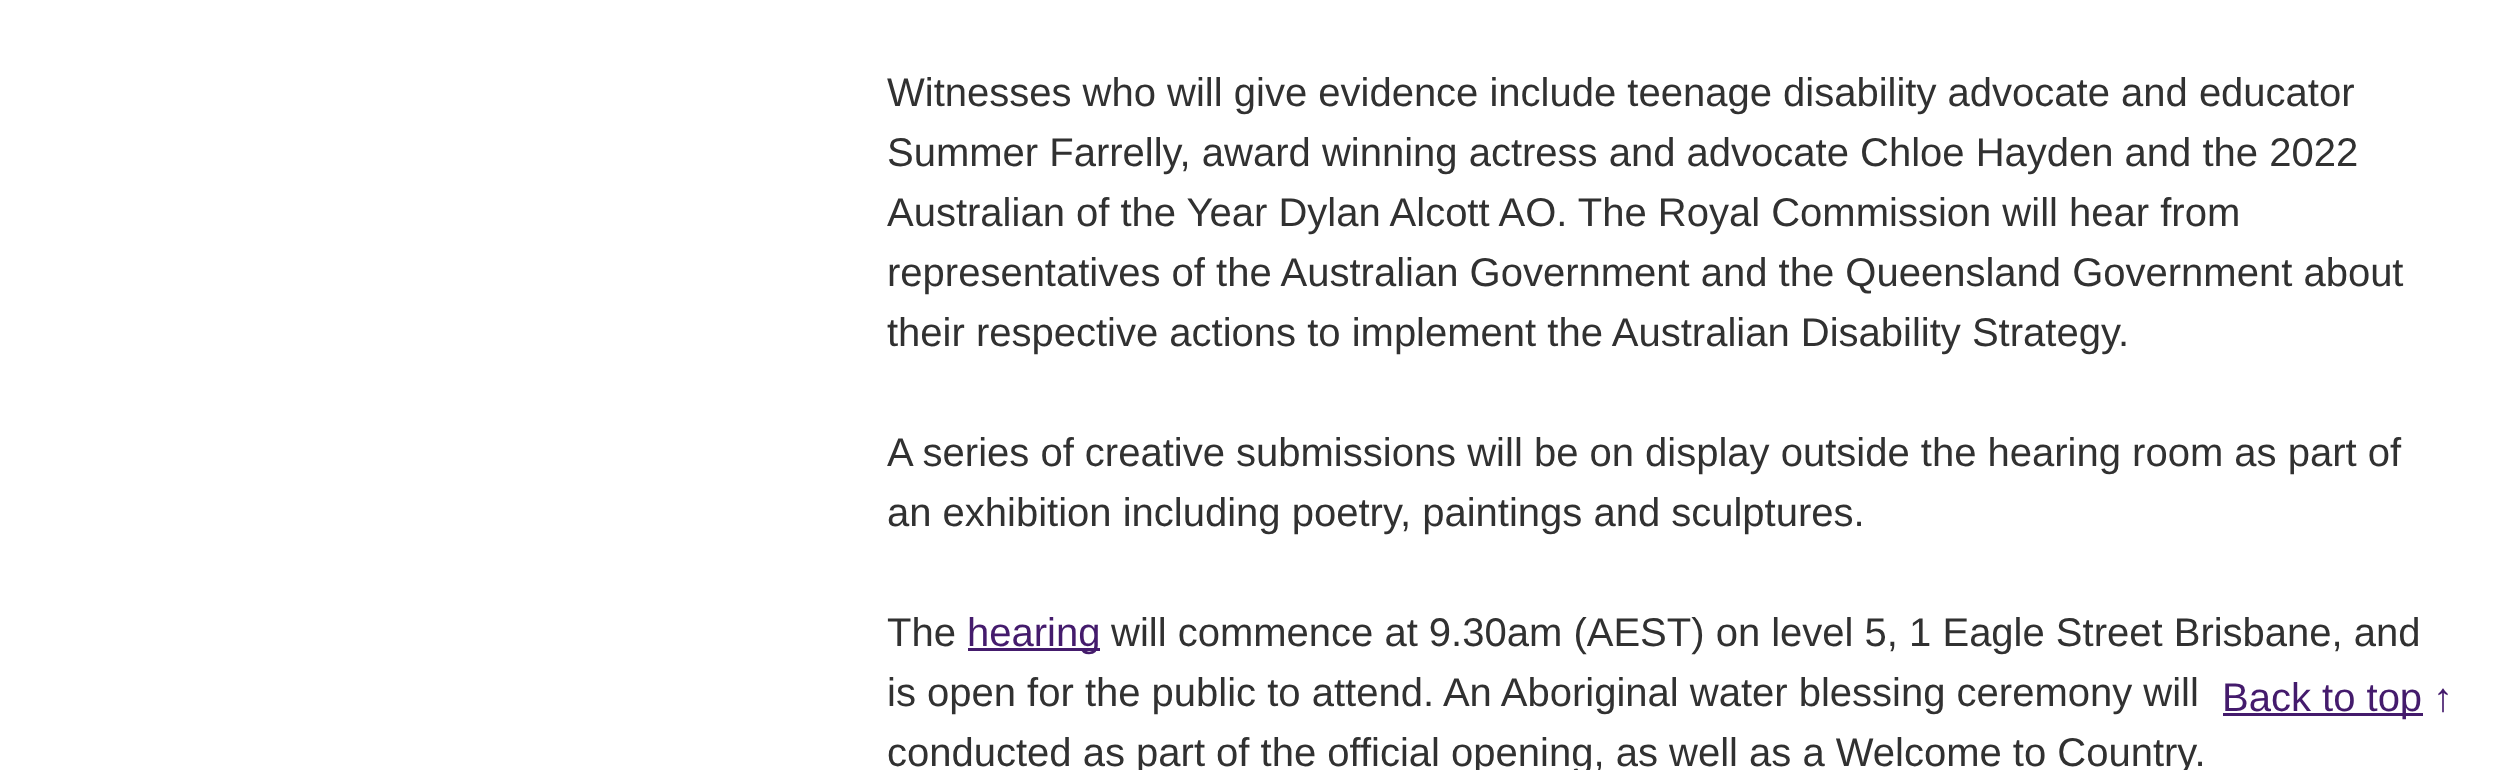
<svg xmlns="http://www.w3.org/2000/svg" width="2518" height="770">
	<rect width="100%" height="100%" fill="#FFFFFF" />
	<g font-family="Liberation Sans" font-size="40" fill="#313131">
		<text x="887" y="106">Witnesses who will give evidence include teenage disability advocate and educator</text>
		<text x="887" y="166">Summer Farrelly, award winning actress and advocate Chloe Hayden and the 2022</text>
		<text x="887" y="226">Australian of the Year Dylan Alcott AO. The Royal Commission will hear from</text>
		<text x="887" y="286">representatives of the Australian Government and the Queensland Government about</text>
		<text x="887" y="346">their respective actions to implement the Australian Disability Strategy.</text>
		<text x="887" y="466">A series of creative submissions will be on display outside the hearing room as part of</text>
		<text x="887" y="526">an exhibition including poetry, paintings and sculptures.</text>
		<text x="887" y="646">The</text>
	</g>
	<rect x="968" y="648" width="132" height="3" fill="#441B6C" />
	<text x="967" y="646" font-family="Liberation Sans" font-size="40" fill="#441B6C">hearing</text>
	<g font-family="Liberation Sans" font-size="40" fill="#313131">
		<text x="1111" y="646">will commence at 9.30am (AEST) on level 5, 1 Eagle Street Brisbane, and</text>
		<text x="887" y="706">is open for the public to attend. An Aboriginal water blessing ceremony will</text>
		<text x="887" y="766">conducted as part of the official opening, as well as a Welcome to Country.</text>
	</g>
	<rect x="2223" y="713" width="200" height="3" fill="#441B6C" />
	<g font-family="Liberation Sans" font-size="40" fill="#441B6C">
		<text x="2222" y="711">Back to top</text>
		<text x="2433" y="711">↑</text>
	</g>
</svg>
